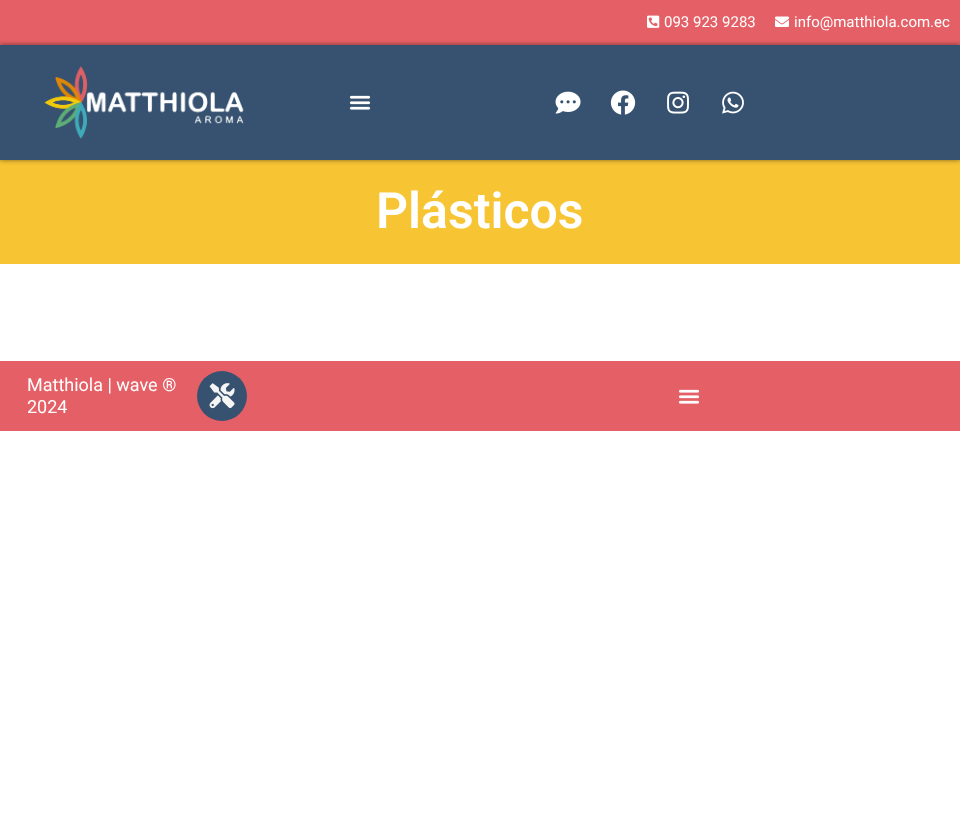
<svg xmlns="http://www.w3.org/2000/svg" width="960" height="821">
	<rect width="100%" height="100%" fill="#FFFFFF" />
	<rect x="0" y="0" width="960" height="45" fill="#E46066" />
	<image x="647" y="15" width="13" height="13" href="assets/img1.png" />
	<text x="664" y="27" font-family="Roboto" font-size="15" fill="#FFFFFF">093 923 9283</text>
	<image x="775" y="16" width="14" height="11" href="assets/img2.png" />
	<text x="794" y="27" font-family="Roboto" font-size="15" fill="#FFFFFF">info@matthiola.com.ec</text>
	<rect x="0" y="160" width="960" height="104" fill="#F7C434" />
	<rect x="0" y="45" width="960" height="115" fill="#000000" fill-opacity="0.5" filter="blur(2.5px)" />
	<rect x="0" y="45" width="960" height="115" fill="#375270" />
	<image x="44" y="66" width="200" height="73" href="assets/img3.png" />
	<image x="349" y="95" width="22" height="15" href="assets/img4.png" />
	<image x="555" y="91" width="26" height="23" href="assets/img5.png" />
	<image x="610" y="90" width="26" height="25" href="assets/img6.png" />
	<image x="667" y="91" width="22" height="23" href="assets/img7.png" />
	<image x="722" y="91" width="22" height="23" href="assets/img8.png" />
	<text x="376" y="228" font-family="Roboto" font-size="50" font-weight="600" fill="#FFFFFF">Plásticos</text>
	<rect x="0" y="361" width="960" height="70" fill="#E46066" />
	<g font-family="Roboto" font-size="18" fill="#FFFFFF">
		<text x="27" y="391">Matthiola | wave ®</text>
		<text x="27" y="413">2024</text>
	</g>
	<circle cx="222" cy="396" r="25" fill="#375270" />
	<image x="209" y="383" width="26" height="26" href="assets/img9.png" />
	<image x="678" y="389" width="22" height="15" href="assets/img10.png" />
</svg>
